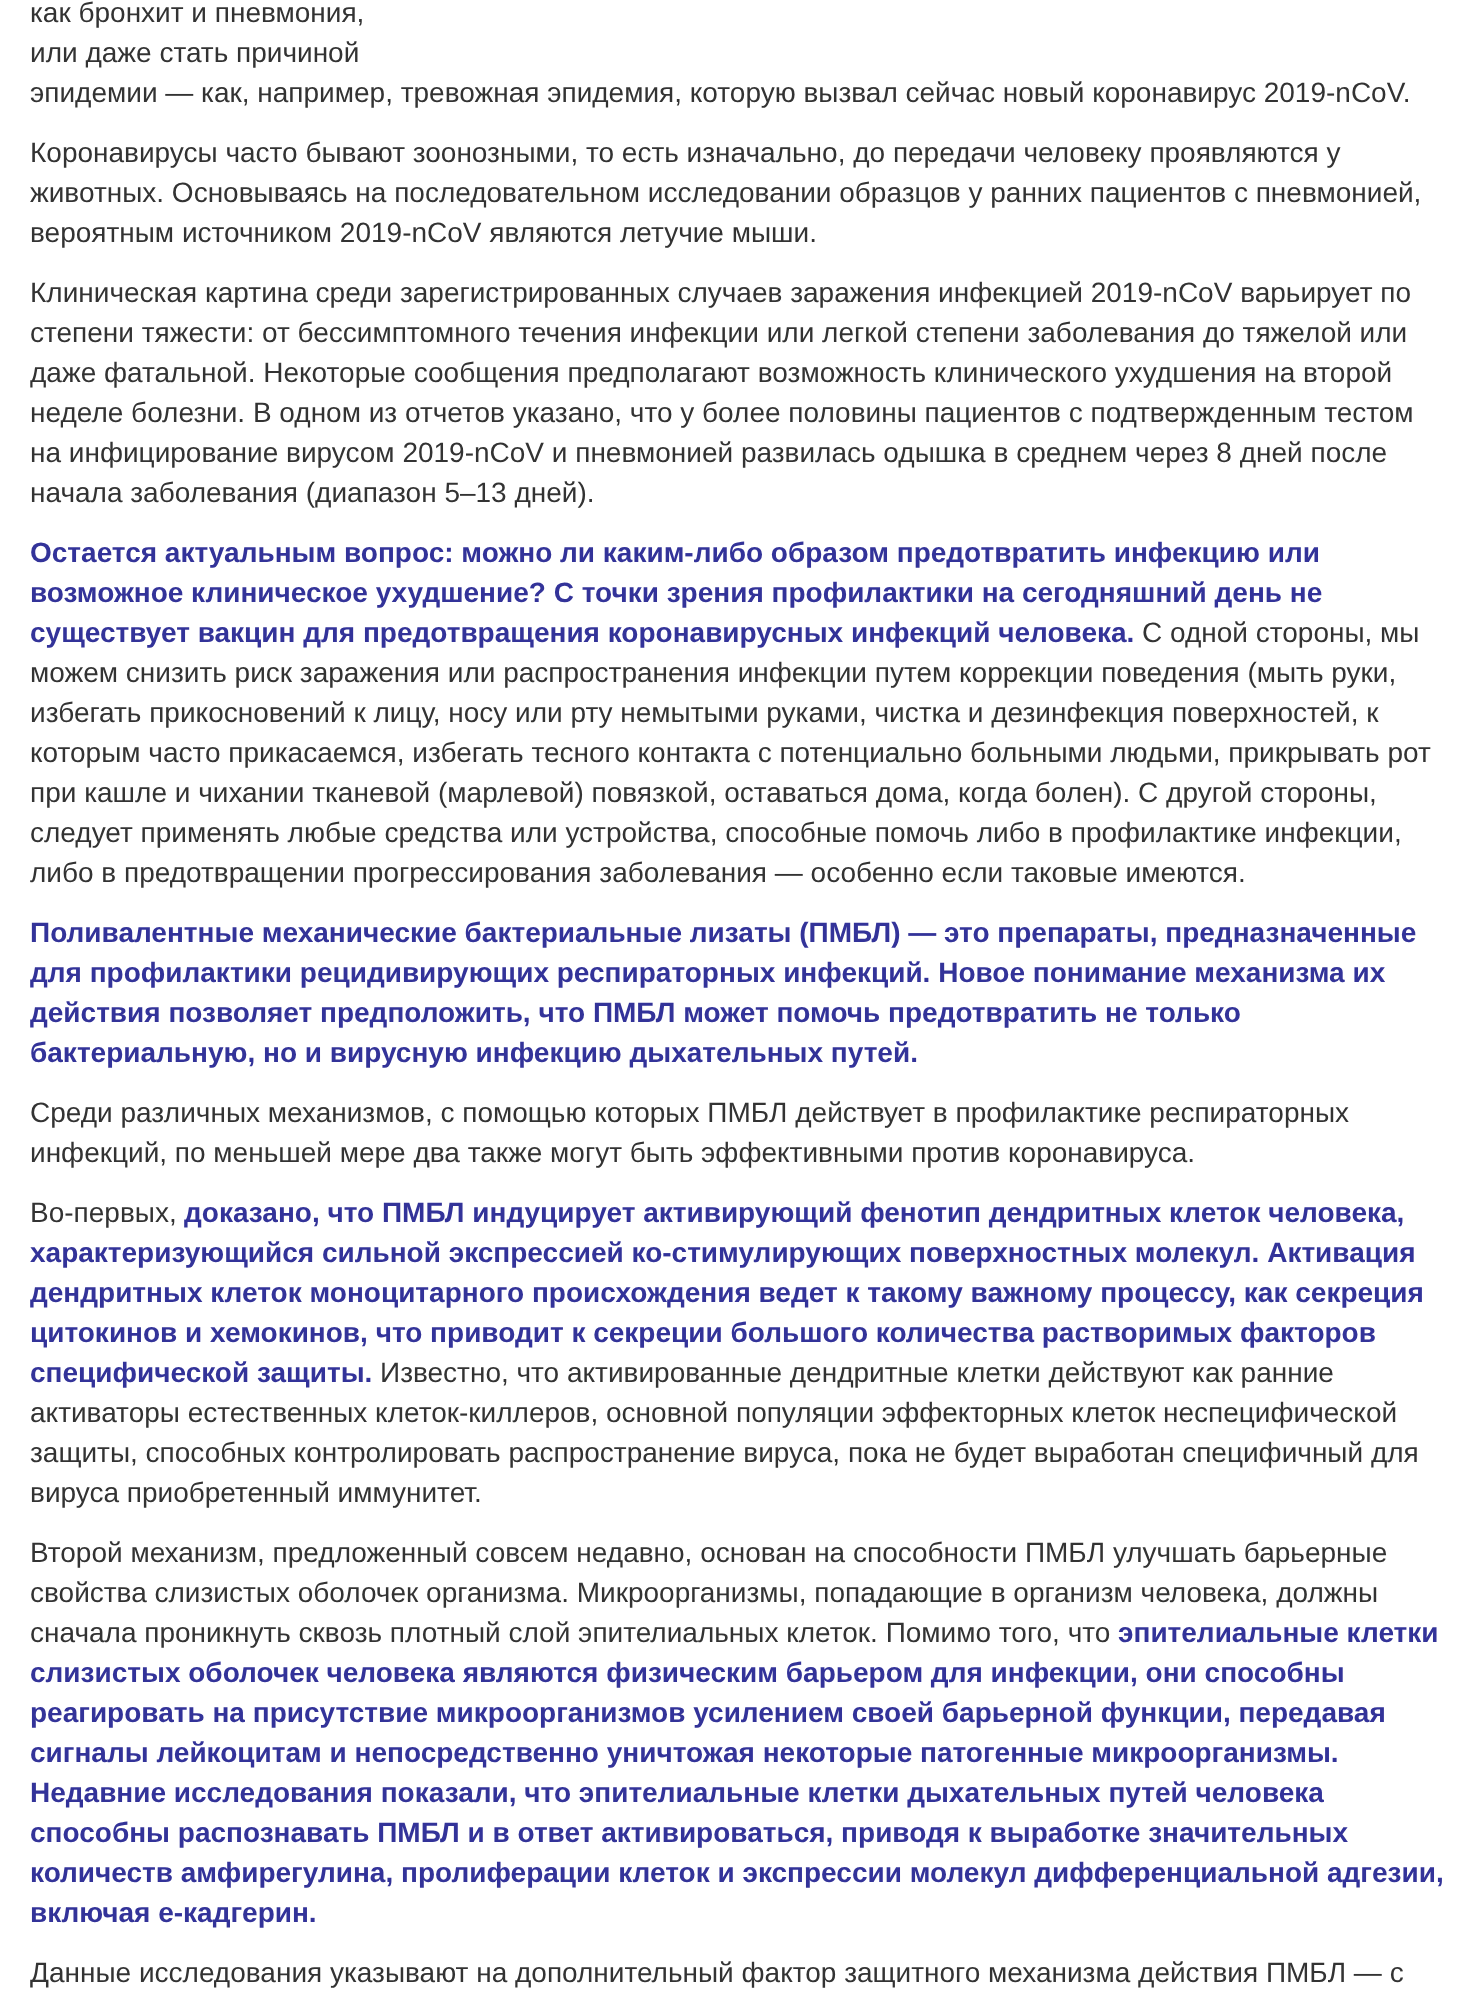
<svg xmlns="http://www.w3.org/2000/svg" width="1477" height="1997">
	<rect width="100%" height="100%" fill="#FFFFFF" />
	<g font-family="Liberation Sans" font-size="28" fill="#333333">
		<text x="30" y="22">как бронхит и пневмония,</text>
		<text x="30" y="62">или даже стать причиной</text>
		<text x="30" y="102">эпидемии — как, например, тревожная эпидемия, которую вызвал сейчас новый коронавирус 2019-nCoV.</text>
		<text x="30" y="162">Коронавирусы часто бывают зоонозными, то есть изначально, до передачи человеку проявляются у</text>
		<text x="30" y="202">животных. Основываясь на последовательном исследовании образцов у ранних пациентов с пневмонией,</text>
		<text x="30" y="242">вероятным источником 2019-nCoV являются летучие мыши.</text>
		<text x="30" y="302">Клиническая картина среди зарегистрированных случаев заражения инфекцией 2019-nCoV варьирует по</text>
		<text x="30" y="342">степени тяжести: от бессимптомного течения инфекции или легкой степени заболевания до тяжелой или</text>
		<text x="30" y="382">даже фатальной. Некоторые сообщения предполагают возможность клинического ухудшения на второй</text>
		<text x="30" y="422">неделе болезни. В одном из отчетов указано, что у более половины пациентов с подтвержденным тестом</text>
		<text x="30" y="462">на инфицирование вирусом 2019-nCoV и пневмонией развилась одышка в среднем через 8 дней после</text>
		<text x="30" y="502">начала заболевания (диапазон 5–13 дней).</text>
	</g>
	<g font-family="Liberation Sans" font-size="28" font-weight="700" fill="#333399">
		<text x="30" y="562">Остается актуальным вопрос: можно ли каким-либо образом предотвратить инфекцию или</text>
		<text x="30" y="602">возможное клиническое ухудшение? С точки зрения профилактики на сегодняшний день не</text>
		<text x="30" y="642">существует вакцин для предотвращения коронавирусных инфекций человека.</text>
	</g>
	<g font-family="Liberation Sans" font-size="28" fill="#333333">
		<text x="1142" y="642">С одной стороны, мы</text>
		<text x="30" y="682">можем снизить риск заражения или распространения инфекции путем коррекции поведения (мыть руки,</text>
		<text x="30" y="722">избегать прикосновений к лицу, носу или рту немытыми руками, чистка и дезинфекция поверхностей, к</text>
		<text x="30" y="762">которым часто прикасаемся, избегать тесного контакта с потенциально больными людьми, прикрывать рот</text>
		<text x="30" y="802">при кашле и чихании тканевой (марлевой) повязкой, оставаться дома, когда болен). С другой стороны,</text>
		<text x="30" y="842">следует применять любые средства или устройства, способные помочь либо в профилактике инфекции,</text>
		<text x="30" y="882">либо в предотвращении прогрессирования заболевания — особенно если таковые имеются.</text>
	</g>
	<g font-family="Liberation Sans" font-size="28" font-weight="700" fill="#333399">
		<text x="30" y="942">Поливалентные механические бактериальные лизаты (ПМБЛ) — это препараты, предназначенные</text>
		<text x="30" y="982">для профилактики рецидивирующих респираторных инфекций. Новое понимание механизма их</text>
		<text x="30" y="1022">действия позволяет предположить, что ПМБЛ может помочь предотвратить не только</text>
		<text x="30" y="1062">бактериальную, но и вирусную инфекцию дыхательных путей.</text>
	</g>
	<g font-family="Liberation Sans" font-size="28" fill="#333333">
		<text x="30" y="1122">Среди различных механизмов, с помощью которых ПМБЛ действует в профилактике респираторных</text>
		<text x="30" y="1162">инфекций, по меньшей мере два также могут быть эффективными против коронавируса.</text>
		<text x="30" y="1222">Во-первых,</text>
	</g>
	<g font-family="Liberation Sans" font-size="28" font-weight="700" fill="#333399">
		<text x="184" y="1222">доказано, что ПМБЛ индуцирует активирующий фенотип дендритных клеток человека,</text>
		<text x="30" y="1262">характеризующийся сильной экспрессией ко-стимулирующих поверхностных молекул. Активация</text>
		<text x="30" y="1302">дендритных клеток моноцитарного происхождения ведет к такому важному процессу, как секреция</text>
		<text x="30" y="1342">цитокинов и хемокинов, что приводит к секреции большого количества растворимых факторов</text>
		<text x="30" y="1382">специфической защиты.</text>
	</g>
	<g font-family="Liberation Sans" font-size="28" fill="#333333">
		<text x="380" y="1382">Известно, что активированные дендритные клетки действуют как ранние</text>
		<text x="30" y="1422">активаторы естественных клеток-киллеров, основной популяции эффекторных клеток неспецифической</text>
		<text x="30" y="1462">защиты, способных контролировать распространение вируса, пока не будет выработан специфичный для</text>
		<text x="30" y="1502">вируса приобретенный иммунитет.</text>
		<text x="30" y="1562">Второй механизм, предложенный совсем недавно, основан на способности ПМБЛ улучшать барьерные</text>
		<text x="30" y="1602">свойства слизистых оболочек организма. Микроорганизмы, попадающие в организм человека, должны</text>
		<text x="30" y="1642">сначала проникнуть сквозь плотный слой эпителиальных клеток. Помимо того, что</text>
	</g>
	<g font-family="Liberation Sans" font-size="28" font-weight="700" fill="#333399">
		<text x="1118" y="1642">эпителиальные клетки</text>
		<text x="30" y="1682">слизистых оболочек человека являются физическим барьером для инфекции, они способны</text>
		<text x="30" y="1722">реагировать на присутствие микроорганизмов усилением своей барьерной функции, передавая</text>
		<text x="30" y="1762">сигналы лейкоцитам и непосредственно уничтожая некоторые патогенные микроорганизмы.</text>
		<text x="30" y="1802">Недавние исследования показали, что эпителиальные клетки дыхательных путей человека</text>
		<text x="30" y="1842">способны распознавать ПМБЛ и в ответ активироваться, приводя к выработке значительных</text>
		<text x="30" y="1882">количеств амфирегулина, пролиферации клеток и экспрессии молекул дифференциальной адгезии,</text>
		<text x="30" y="1922">включая е-кадгерин.</text>
	</g>
	<text x="30" y="1982" font-family="Liberation Sans" font-size="28" fill="#333333">Данные исследования указывают на дополнительный фактор защитного механизма действия ПМБЛ — с</text>
</svg>
